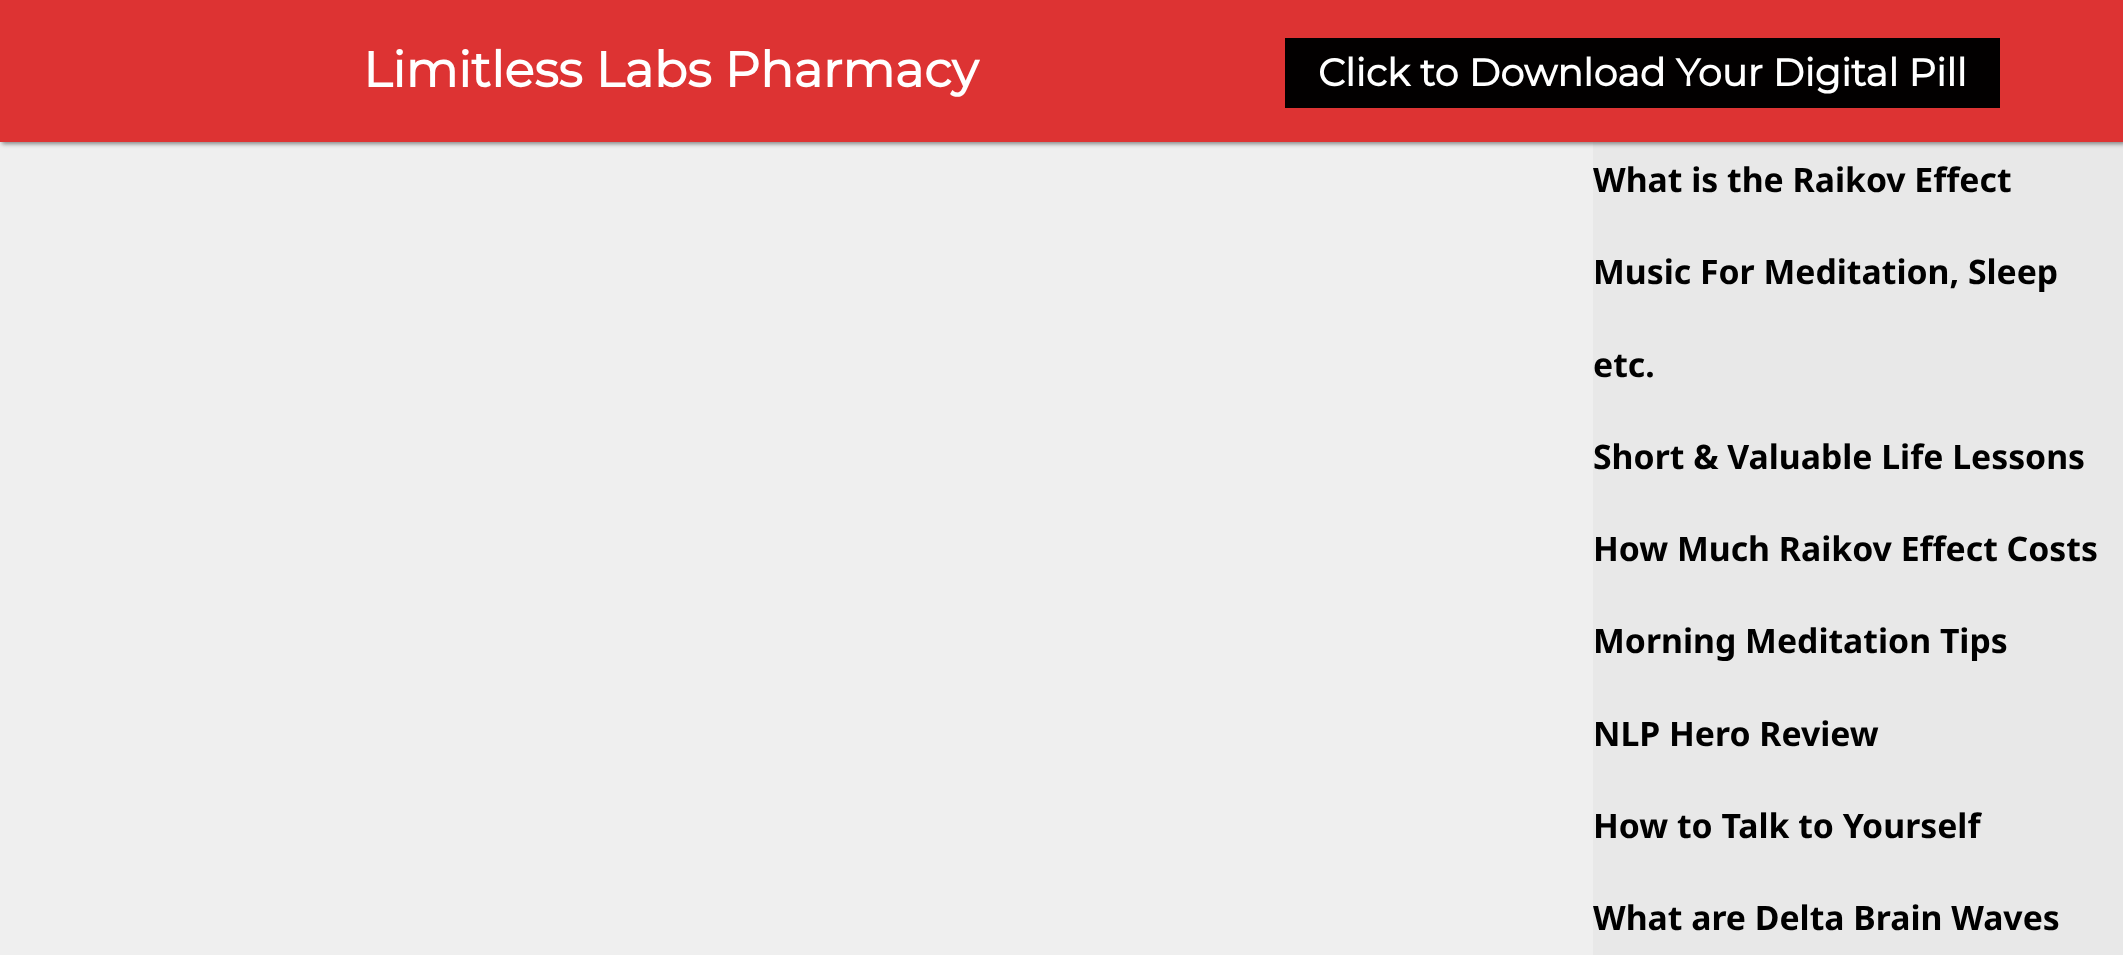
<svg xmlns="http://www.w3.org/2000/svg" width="2123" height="955">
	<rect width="100%" height="100%" fill="#EFEFEF" />
	<rect x="1593" y="142" width="530" height="813" fill="#E8E8E8" />
	<rect x="2" y="2" width="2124" height="142" fill="#424242" fill-opacity="0.6" filter="blur(2px)" />
	<rect x="0" y="0" width="2123" height="142" fill="#DD3333" />
	<text x="363" y="87" font-family="Montserrat" font-size="49.5" font-weight="700" fill="#FFFFFF">Limitless Labs Pharmacy</text>
	<rect x="1285" y="38" width="715" height="70" fill="#020000" />
	<text x="1318" y="86" font-family="Montserrat" font-size="38.25" font-weight="700" fill="#FFFFFF">Click to Download Your Digital Pill</text>
	<g font-family="Noto Sans" font-size="33.75" font-weight="700" fill="#000000">
		<text x="1593" y="192">What is the Raikov Effect</text>
		<text x="1593" y="284">Music For Meditation, Sleep</text>
		<text x="1593" y="377">etc.</text>
		<text x="1593" y="469">Short &amp; Valuable Life Lessons</text>
		<text x="1593" y="561">How Much Raikov Effect Costs</text>
		<text x="1593" y="653">Morning Meditation Tips</text>
		<text x="1593" y="746">NLP Hero Review</text>
		<text x="1593" y="838">How to Talk to Yourself</text>
		<text x="1593" y="930">What are Delta Brain Waves</text>
	</g>
</svg>
